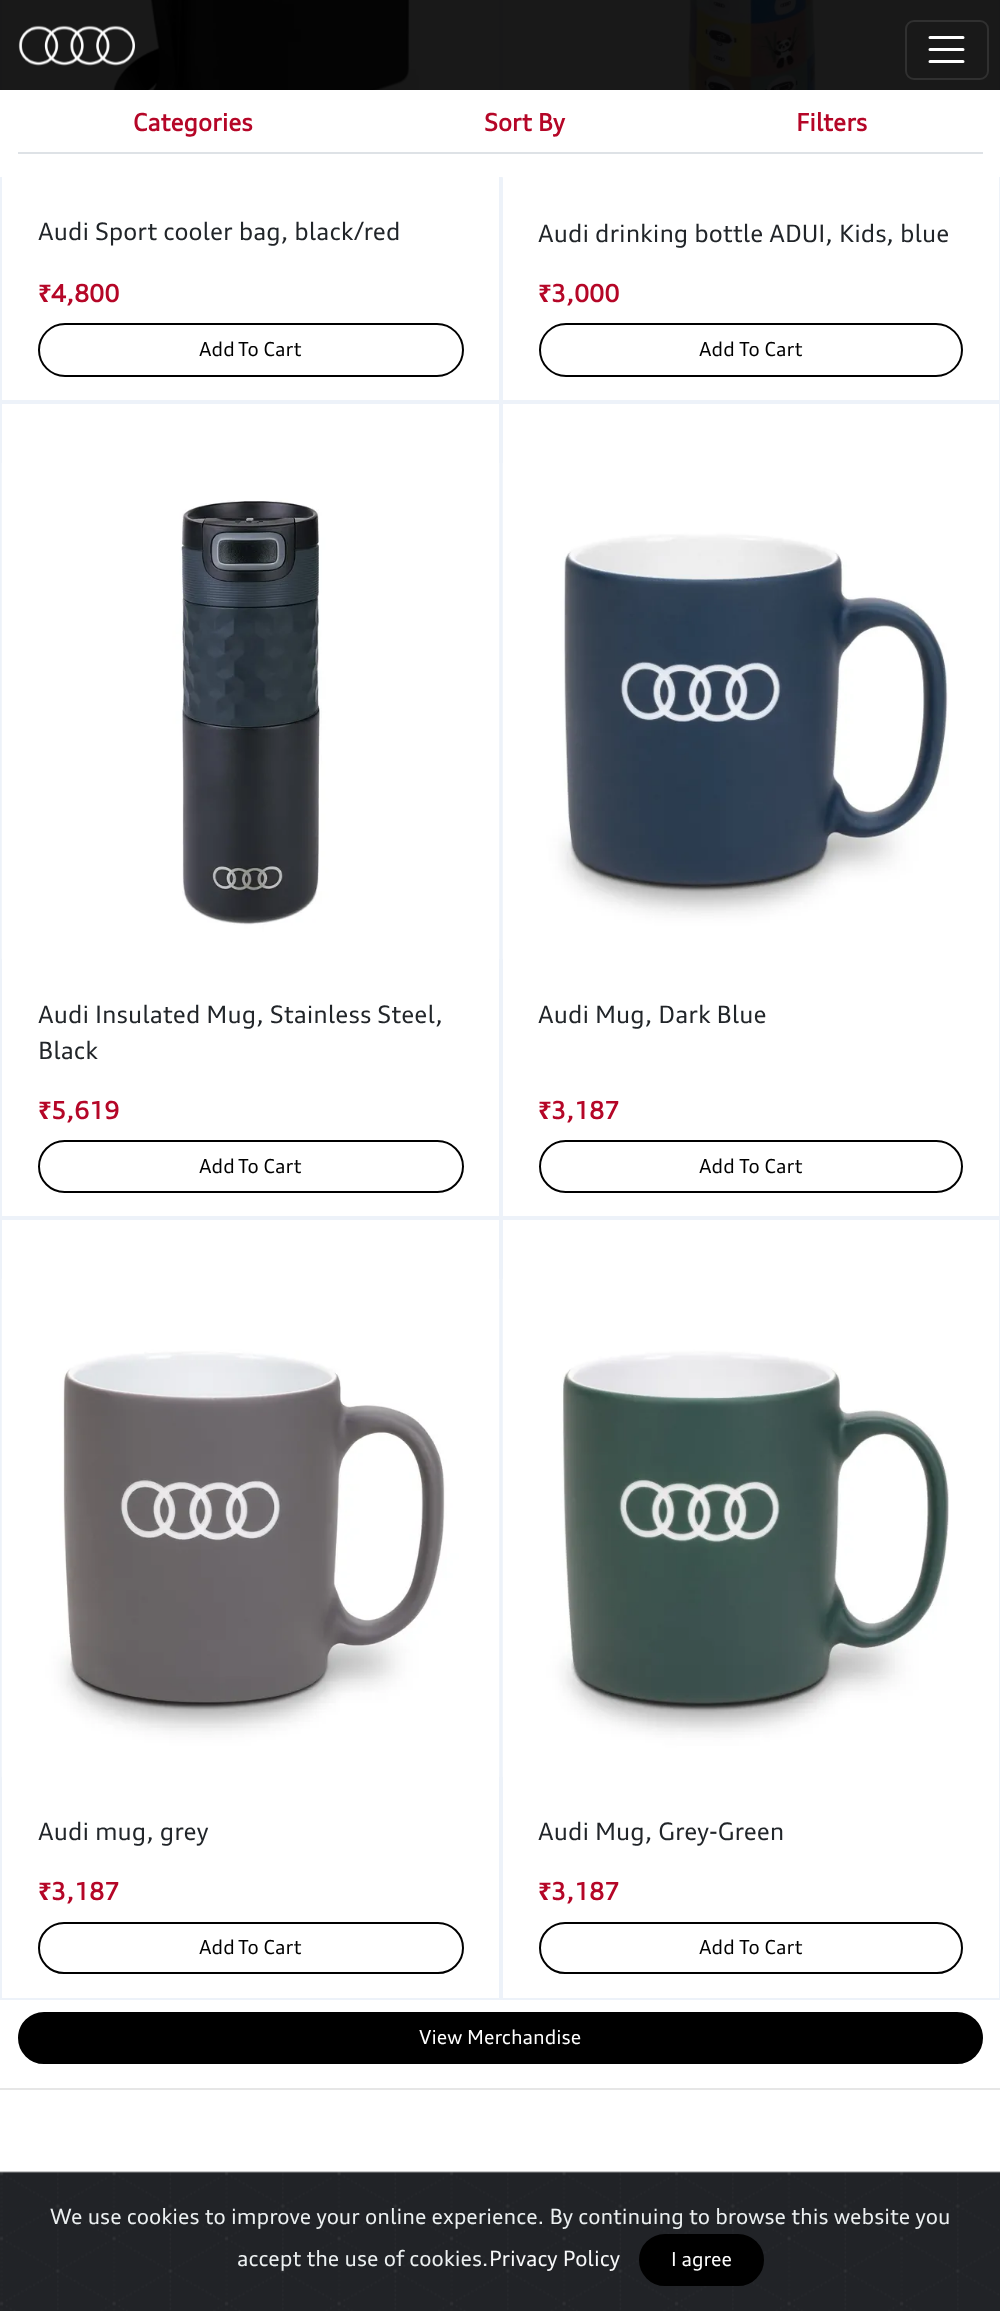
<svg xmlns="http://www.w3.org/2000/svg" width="1000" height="2311">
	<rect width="100%" height="100%" fill="#FFFFFF" />
	<rect x="1" y="-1" width="499" height="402" fill="none" stroke="#EDF2F9" stroke-width="2" />
	<image x="1" y="0" width="499" height="90" href="assets/img2.png" />
	<rect x="502" y="-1" width="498" height="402" fill="none" stroke="#EDF2F9" stroke-width="2" />
	<image x="502" y="0" width="317" height="178" href="assets/img3.png" />
	<rect x="0" y="0" width="1000" height="90" fill="#000000" fill-opacity="0.9" />
	<image x="18" y="25" width="117" height="41" href="assets/img1.png" />
	<rect x="906" y="21" width="82" height="58" rx="8" fill="none" stroke="#303030" stroke-width="2" />
	<path d="M930 37.5H963M930 49.5H963M930 61.5H963" fill="none" stroke="#FFFFFF" stroke-width="3" stroke-linecap="round" />
	<rect x="0" y="90" width="1000" height="87" fill="#FFFFFF" />
	<rect x="18" y="152" width="965" height="2" fill="#DEE2E6" />
	<g font-family="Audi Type" font-size="24" font-weight="700" fill="#B50627">
		<text x="133" y="131">Categories</text>
		<text x="484" y="131">Sort By</text>
		<text x="796" y="131">Filters</text>
	</g>
	<text x="38" y="240" font-family="Audi Type" font-size="24" fill="#212529">Audi Sport cooler bag, black/red</text>
	<text x="38" y="302" font-family="Noto Sans" font-size="24" font-weight="700" fill="#B50627">₹</text>
	<text x="51" y="302" font-family="Audi Type" font-size="24" font-weight="700" fill="#B50627">4,800</text>
	<rect x="39" y="324" width="424" height="52" rx="26" fill="none" stroke="#000000" stroke-width="2" />
	<g font-family="Audi Type" font-size="19.25" fill="#000000">
		<text x="199" y="356">Add</text>
		<text x="238" y="356">To Cart</text>
	</g>
	<text x="538" y="242" font-family="Audi Type" font-size="24" fill="#212529">Audi drinking bottle ADUI, Kids, blue</text>
	<text x="538" y="302" font-family="Noto Sans" font-size="24" font-weight="700" fill="#B50627">₹</text>
	<text x="551" y="302" font-family="Audi Type" font-size="24" font-weight="700" fill="#B50627">3,000</text>
	<rect x="540" y="324" width="422" height="52" rx="26" fill="none" stroke="#000000" stroke-width="2" />
	<g font-family="Audi Type" font-size="19.25" fill="#000000">
		<text x="699" y="356">Add</text>
		<text x="739" y="356">To Cart</text>
	</g>
	<rect x="1" y="403" width="499" height="814" fill="none" stroke="#EDF2F9" stroke-width="2" />
	<image x="1" y="463" width="499" height="496" href="assets/img4.png" />
	<g font-family="Audi Type" font-size="24" fill="#212529">
		<text x="38" y="1023">Audi Insulated Mug, Stainless Steel,</text>
		<text x="38" y="1059">Black</text>
	</g>
	<text x="38" y="1119" font-family="Noto Sans" font-size="24" font-weight="700" fill="#B50627">₹</text>
	<text x="51" y="1119" font-family="Audi Type" font-size="24" font-weight="700" fill="#B50627">5,619</text>
	<rect x="39" y="1141" width="424" height="51" rx="25.5" fill="none" stroke="#000000" stroke-width="2" />
	<g font-family="Audi Type" font-size="19.25" fill="#000000">
		<text x="199" y="1173">Add</text>
		<text x="238" y="1173">To Cart</text>
	</g>
	<rect x="502" y="403" width="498" height="814" fill="none" stroke="#EDF2F9" stroke-width="2" />
	<image x="502" y="463" width="447" height="496" href="assets/img5.png" />
	<text x="538" y="1023" font-family="Audi Type" font-size="24" fill="#212529">Audi Mug, Dark Blue</text>
	<text x="538" y="1119" font-family="Noto Sans" font-size="24" font-weight="700" fill="#B50627">₹</text>
	<text x="551" y="1119" font-family="Audi Type" font-size="24" font-weight="700" fill="#B50627">3,187</text>
	<rect x="540" y="1141" width="422" height="51" rx="25.5" fill="none" stroke="#000000" stroke-width="2" />
	<g font-family="Audi Type" font-size="19.25" fill="#000000">
		<text x="699" y="1173">Add</text>
		<text x="739" y="1173">To Cart</text>
	</g>
	<rect x="1" y="1219" width="499" height="780" fill="none" stroke="#EDF2F9" stroke-width="2" />
	<image x="1" y="1279" width="499" height="498" href="assets/img6.png" />
	<text x="38" y="1840" font-family="Audi Type" font-size="24" fill="#212529">Audi mug, grey</text>
	<text x="38" y="1900" font-family="Noto Sans" font-size="24" font-weight="700" fill="#B50627">₹</text>
	<text x="51" y="1900" font-family="Audi Type" font-size="24" font-weight="700" fill="#B50627">3,187</text>
	<rect x="39" y="1923" width="424" height="50" rx="25" fill="none" stroke="#000000" stroke-width="2" />
	<g font-family="Audi Type" font-size="19.25" fill="#000000">
		<text x="199" y="1954">Add</text>
		<text x="238" y="1954">To Cart</text>
	</g>
	<rect x="502" y="1219" width="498" height="780" fill="none" stroke="#EDF2F9" stroke-width="2" />
	<image x="502" y="1279" width="447" height="498" href="assets/img7.png" />
	<text x="538" y="1840" font-family="Audi Type" font-size="24" fill="#212529">Audi Mug, Grey-Green</text>
	<text x="538" y="1900" font-family="Noto Sans" font-size="24" font-weight="700" fill="#B50627">₹</text>
	<text x="551" y="1900" font-family="Audi Type" font-size="24" font-weight="700" fill="#B50627">3,187</text>
	<rect x="540" y="1923" width="422" height="50" rx="25" fill="none" stroke="#000000" stroke-width="2" />
	<g font-family="Audi Type" font-size="19.25" fill="#000000">
		<text x="699" y="1954">Add</text>
		<text x="739" y="1954">To Cart</text>
	</g>
	<rect x="19" y="2013" width="963" height="50" rx="25" fill="#000000" stroke="#000000" stroke-width="2" />
	<text x="419" y="2044" font-family="Audi Type" font-size="19.25" fill="#FFFFFF">View Merchandise</text>
	<rect x="0" y="2088" width="1000" height="2" fill="#E6E6E6" />
	<image x="0" y="2171" width="1000" height="140" href="assets/img8.png" />
	<g font-family="Audi Type" font-size="21" fill="#ECF0F1">
		<text x="50" y="2224">We use cookies to improve your online experience. By continuing to browse this website you</text>
		<text x="237" y="2266">accept the use of cookies.</text>
	</g>
	<text x="489" y="2266" font-family="Audi Type" font-size="21" fill="#F8F9FA">Privacy Policy</text>
	<rect x="640" y="2235" width="123" height="50" rx="25" fill="#000000" stroke="#000000" stroke-width="2" />
	<text x="671" y="2266" font-family="Audi Type" font-size="19.25" fill="#FFFFFF">I agree</text>
</svg>
